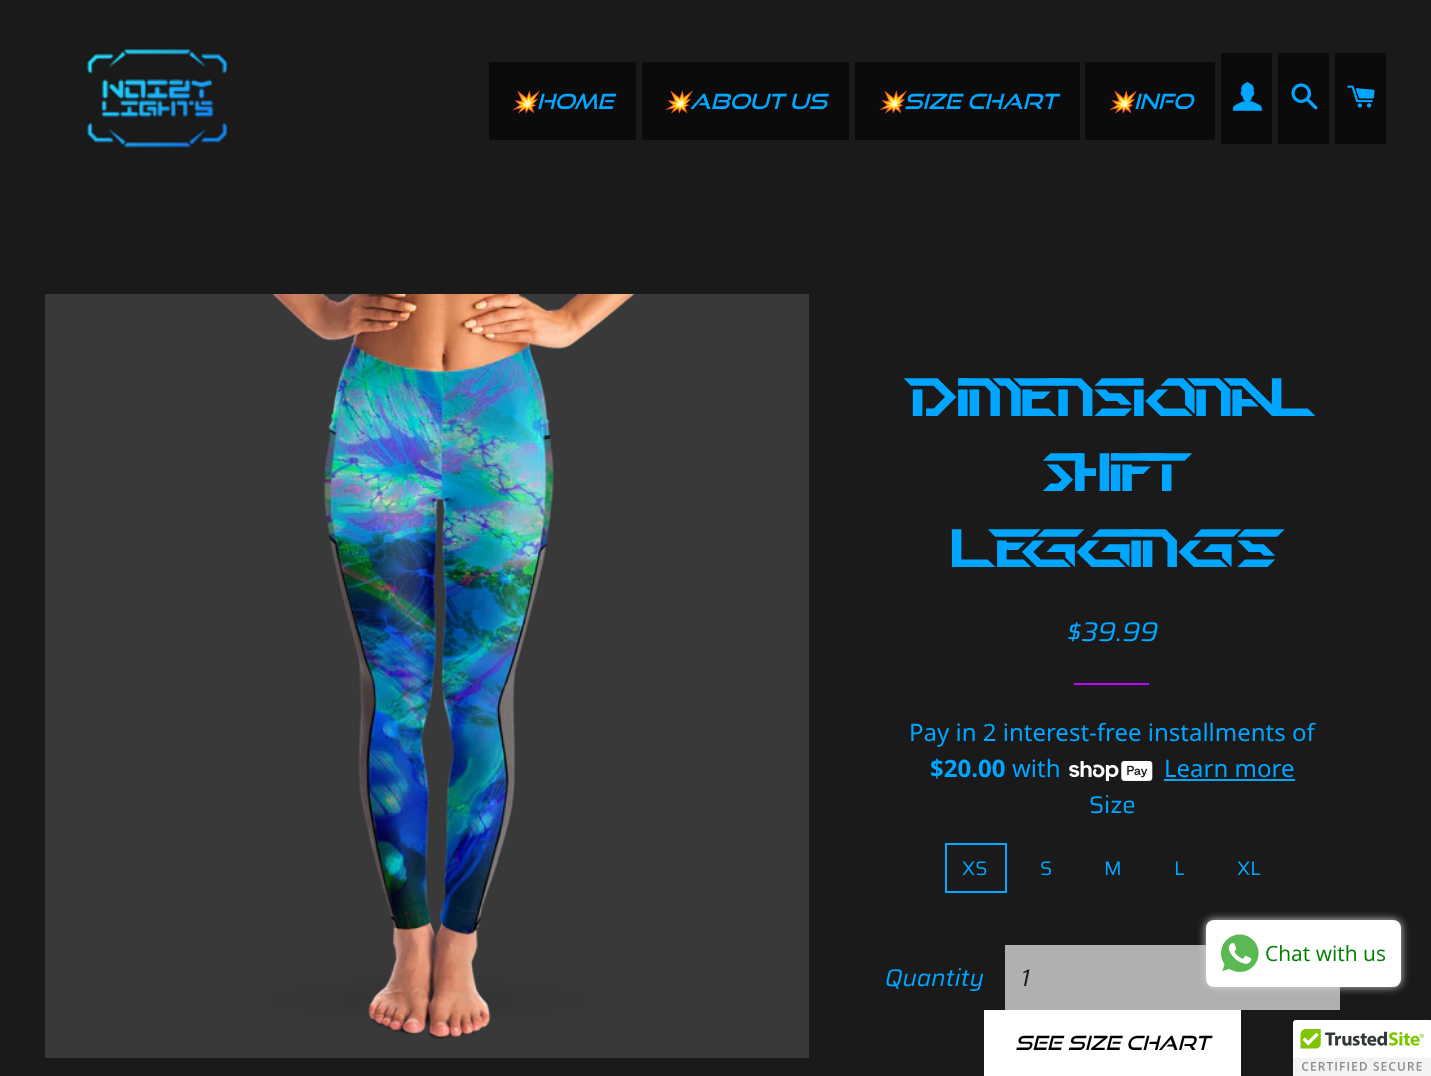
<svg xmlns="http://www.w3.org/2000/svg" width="1431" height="1076">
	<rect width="100%" height="100%" fill="#1A1A1A" />
	<image x="86" y="49" width="142" height="99" href="assets/img1.png" />
	<rect x="489" y="62" width="147" height="78" fill="#0B0B0B" />
	<text x="511" y="109" font-family="Noto Color Emoji" font-size="21" font-style="italic" fill="#00A6FF">💥</text>
	<text x="537" y="109" font-family="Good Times" font-size="21" font-style="italic" fill="#00A6FF">HOME</text>
	<rect x="642" y="62" width="207" height="78" fill="#0B0B0B" />
	<text x="664" y="109" font-family="Noto Color Emoji" font-size="21" font-style="italic" fill="#00A6FF">💥</text>
	<text x="690" y="109" font-family="Good Times" font-size="21" font-style="italic" fill="#00A6FF">ABOUT US</text>
	<rect x="855" y="62" width="225" height="78" fill="#0B0B0B" />
	<text x="878" y="109" font-family="Noto Color Emoji" font-size="21" font-style="italic" fill="#00A6FF">💥</text>
	<text x="904" y="109" font-family="Good Times" font-size="21" font-style="italic" fill="#00A6FF">SIZE CHART</text>
	<rect x="1085" y="62" width="130" height="78" fill="#0B0B0B" />
	<text x="1108" y="109" font-family="Noto Color Emoji" font-size="21" font-style="italic" fill="#00A6FF">💥</text>
	<text x="1134" y="109" font-family="Good Times" font-size="21" font-style="italic" fill="#00A6FF">INFO</text>
	<rect x="1221" y="53" width="51" height="91" fill="#0B0B0B" />
	<image x="1233" y="82" width="29" height="29" href="assets/img2.png" />
	<rect x="1278" y="53" width="51" height="91" fill="#0B0B0B" />
	<image x="1291" y="83" width="27" height="27" href="assets/img3.png" />
	<rect x="1335" y="53" width="51" height="91" fill="#0B0B0B" />
	<image x="1347" y="85" width="28" height="23" href="assets/img4.png" />
	<rect x="45" y="294" width="764" height="764" fill="#393939" />
	<image x="272" y="294" width="362" height="745" href="assets/img5.png" />
	<g font-family="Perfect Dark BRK" font-size="54" fill="#00A6FF">
		<text x="911" y="416">Dimensional</text>
		<text x="1041" y="491">Shift</text>
		<text x="950" y="567">Leggings</text>
	</g>
	<text x="1067" y="641" font-family="Saira" font-size="27" font-style="italic" fill="#00A6FF">$39.99</text>
	<rect x="1074" y="683" width="75" height="2" fill="#C100FF" />
	<text x="909" y="741" font-family="Noto Sans" font-size="24" fill="#00A6FF">Pay in 2 interest-free installments of</text>
	<text x="930" y="777" font-family="Noto Sans" font-size="24" font-weight="700" fill="#00A6FF">$20.00</text>
	<text x="1012" y="777" font-family="Noto Sans" font-size="24" fill="#00A6FF">with</text>
	<image x="1069" y="761" width="84" height="21" href="assets/img6.png" />
	<text x="1164" y="777" font-family="Noto Sans" font-size="24" fill="#00A6FF">Learn more</text>
	<rect x="1164" y="779" width="131" height="2" fill="#00A9FF" />
	<text x="1089" y="813" font-family="Saira" font-size="24" fill="#00A6FF">Size</text>
	<rect x="946" y="844" width="60" height="48" fill="none" stroke="#00A6FF" stroke-width="2" />
	<g font-family="Saira" font-size="19.5" fill="#00A6FF">
		<text x="962" y="875">XS</text>
		<text x="1040" y="875">S</text>
		<text x="1104" y="875">M</text>
		<text x="1174" y="875">L</text>
		<text x="1237" y="875">XL</text>
	</g>
	<text x="885" y="986" font-family="Saira" font-size="24" font-style="italic" fill="#00A6FF">Quantity</text>
	<rect x="1005" y="945" width="335" height="65" fill="#B0B0B0" />
	<text x="1021" y="986" font-family="Saira" font-size="24" font-style="italic" fill="#1C1D1D">1</text>
	<rect x="984" y="1010" width="257" height="66" fill="#FFFFFF" />
	<text x="1015" y="1050" font-family="Good Times" font-size="19.5" font-style="italic" fill="#000000">SEE SIZE CHART</text>
	<rect x="1206" y="920" width="195" height="67" rx="8" fill="#D3D3D3" filter="blur(4px)" />
	<rect x="1206" y="920" width="195" height="67" rx="8" fill="#FFFFFF" />
	<image x="1221" y="934" width="38" height="38" href="assets/img7.png" />
	<text x="1265" y="961" font-family="Open Sans" font-size="21" fill="#008000">Chat with us</text>
	<path d="M1296 1020H1431V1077H1293V1023C1293 1021.5 1294.5 1020 1296 1020Z" fill="#FFFFFF" />
	<image x="1293" y="1020" width="138" height="56" href="assets/img8.png" />
</svg>
